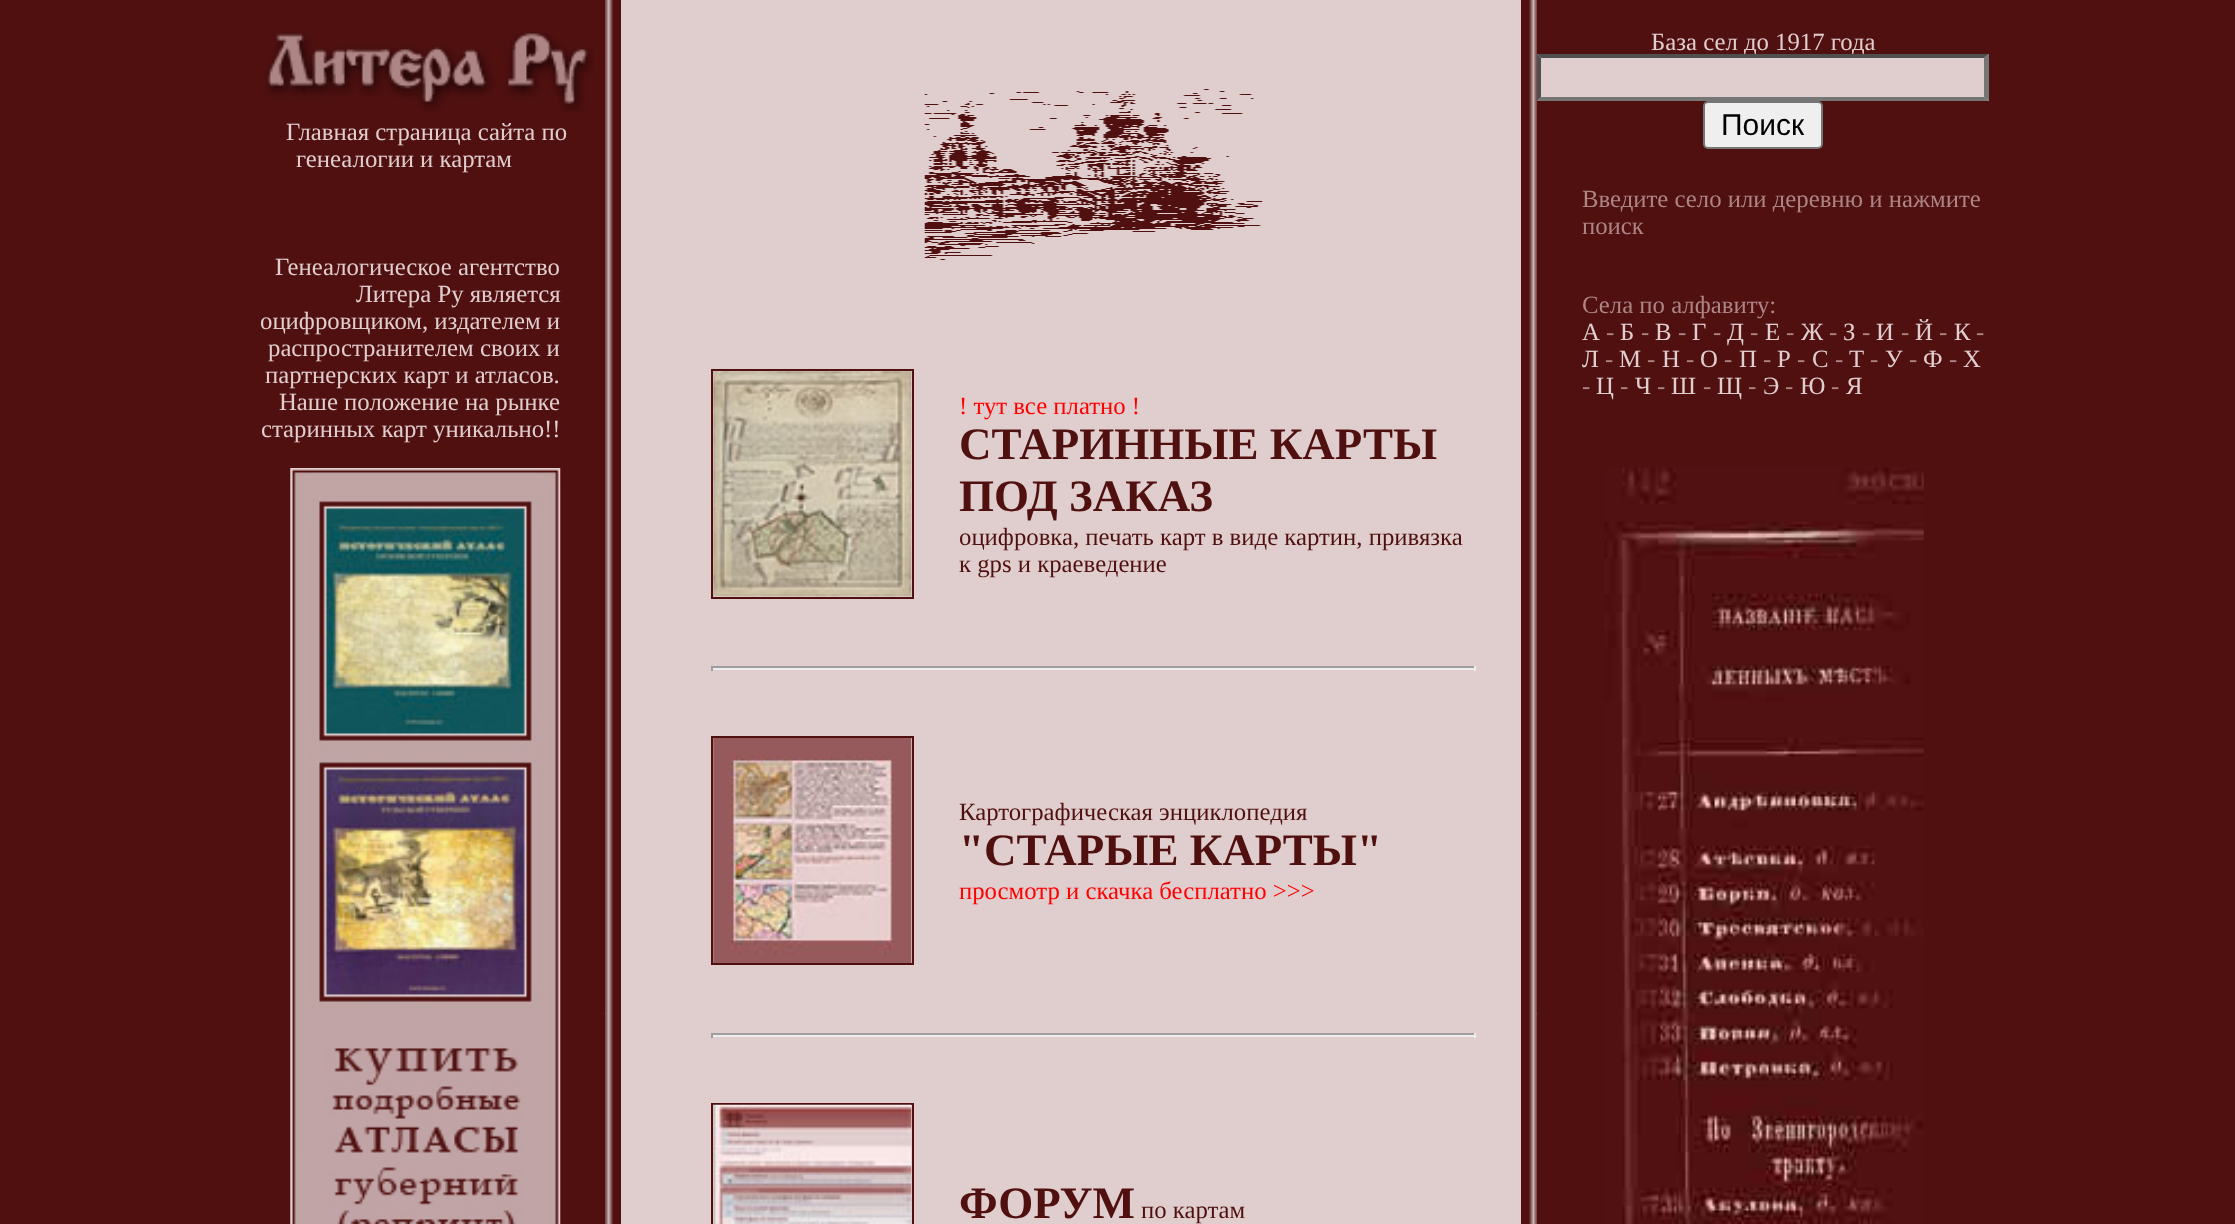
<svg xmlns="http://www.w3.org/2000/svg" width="2235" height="1224">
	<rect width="100%" height="100%" fill="#501010" />
	<image x="265" y="31" width="329" height="82" href="assets/img1.png" />
	<g font-family="Liberation Serif" font-size="24.75" fill="#E0CDCD">
		<text x="286" y="140">Главная страница сайта по</text>
		<text x="296" y="167">генеалогии и картам</text>
		<text x="275" y="275">Генеалогическое агентство</text>
		<text x="356" y="302">Литера Ру является</text>
		<text x="260" y="329">оцифровщиком, издателем и</text>
		<text x="268" y="356">распространителем своих и</text>
		<text x="265" y="383">партнерских карт и атласов.</text>
		<text x="279" y="410">Наше положение на рынке</text>
		<text x="261" y="437">старинных карт уникально!!</text>
	</g>
	<image x="290" y="468" width="271" height="756" href="assets/img2.png" />
	<image x="605" y="0" width="8" height="1224" href="assets/img3.png" />
	<image x="605" y="1012" width="1" height="3" href="assets/img4.png" />
	<image x="1529" y="0" width="8" height="1224" href="assets/img5.png" />
	<image x="1536" y="1012" width="1" height="3" href="assets/img4.png" />
	<text x="1651" y="50" font-family="Liberation Serif" font-size="24.75" fill="#E0CDCD">База сел до 1917 года</text>
	<rect x="1537" y="54" width="452" height="47" fill="#E0CDCD" />
	<path d="M1537 54H1989L1984 58H1541Z" fill="#4F4F4F" />
	<path d="M1989 54V101L1984 97V58Z" fill="#767676" />
	<path d="M1989 101H1537L1541 97H1984Z" fill="#767676" />
	<path d="M1537 101V54L1541 58V97Z" fill="#4F4F4F" />
	<rect x="1704" y="102" width="118" height="46" rx="4" fill="#EFEFEF" stroke="#767676" stroke-width="2" />
	<text x="1721" y="135" font-family="Liberation Sans" font-size="30" fill="#000000">Поиск</text>
	<g font-family="Liberation Serif" font-size="24.75" fill="#AE8585">
		<text x="1582" y="207">Введите село или деревню и нажмите</text>
		<text x="1582" y="234">поиск</text>
		<text x="1582" y="313">Села по алфавиту:</text>
	</g>
	<text x="1582" y="340" font-family="Liberation Serif" font-size="24.75" fill="#E0CDCD">А</text>
	<text x="1606" y="340" font-family="Liberation Serif" font-size="24.75" fill="#AE8585">-</text>
	<text x="1620" y="340" font-family="Liberation Serif" font-size="24.75" fill="#E0CDCD">Б</text>
	<text x="1641" y="340" font-family="Liberation Serif" font-size="24.75" fill="#AE8585">-</text>
	<text x="1655" y="340" font-family="Liberation Serif" font-size="24.75" fill="#E0CDCD">В</text>
	<text x="1678" y="340" font-family="Liberation Serif" font-size="24.75" fill="#AE8585">-</text>
	<text x="1692" y="340" font-family="Liberation Serif" font-size="24.75" fill="#E0CDCD">Г</text>
	<text x="1713" y="340" font-family="Liberation Serif" font-size="24.75" fill="#AE8585">-</text>
	<text x="1727" y="340" font-family="Liberation Serif" font-size="24.75" fill="#E0CDCD">Д</text>
	<text x="1750" y="340" font-family="Liberation Serif" font-size="24.75" fill="#AE8585">-</text>
	<text x="1765" y="340" font-family="Liberation Serif" font-size="24.75" fill="#E0CDCD">Е</text>
	<text x="1786" y="340" font-family="Liberation Serif" font-size="24.75" fill="#AE8585">-</text>
	<text x="1801" y="340" font-family="Liberation Serif" font-size="24.75" fill="#E0CDCD">Ж</text>
	<text x="1829" y="340" font-family="Liberation Serif" font-size="24.75" fill="#AE8585">-</text>
	<text x="1843" y="340" font-family="Liberation Serif" font-size="24.75" fill="#E0CDCD">З</text>
	<text x="1862" y="340" font-family="Liberation Serif" font-size="24.75" fill="#AE8585">-</text>
	<text x="1876" y="340" font-family="Liberation Serif" font-size="24.75" fill="#E0CDCD">И</text>
	<text x="1901" y="340" font-family="Liberation Serif" font-size="24.75" fill="#AE8585">-</text>
	<text x="1915" y="340" font-family="Liberation Serif" font-size="24.75" fill="#E0CDCD">Й</text>
	<text x="1939" y="340" font-family="Liberation Serif" font-size="24.75" fill="#AE8585">-</text>
	<text x="1954" y="340" font-family="Liberation Serif" font-size="24.75" fill="#E0CDCD">К</text>
	<text x="1976" y="340" font-family="Liberation Serif" font-size="24.75" fill="#AE8585">-</text>
	<text x="1582" y="367" font-family="Liberation Serif" font-size="24.75" fill="#E0CDCD">Л</text>
	<text x="1605" y="367" font-family="Liberation Serif" font-size="24.75" fill="#AE8585">-</text>
	<text x="1619" y="367" font-family="Liberation Serif" font-size="24.75" fill="#E0CDCD">М</text>
	<text x="1647" y="367" font-family="Liberation Serif" font-size="24.75" fill="#AE8585">-</text>
	<text x="1662" y="367" font-family="Liberation Serif" font-size="24.75" fill="#E0CDCD">Н</text>
	<text x="1686" y="367" font-family="Liberation Serif" font-size="24.75" fill="#AE8585">-</text>
	<text x="1700" y="367" font-family="Liberation Serif" font-size="24.75" fill="#E0CDCD">О</text>
	<text x="1724" y="367" font-family="Liberation Serif" font-size="24.75" fill="#AE8585">-</text>
	<text x="1739" y="367" font-family="Liberation Serif" font-size="24.75" fill="#E0CDCD">П</text>
	<text x="1763" y="367" font-family="Liberation Serif" font-size="24.75" fill="#AE8585">-</text>
	<text x="1777" y="367" font-family="Liberation Serif" font-size="24.75" fill="#E0CDCD">Р</text>
	<text x="1797" y="367" font-family="Liberation Serif" font-size="24.75" fill="#AE8585">-</text>
	<text x="1812" y="367" font-family="Liberation Serif" font-size="24.75" fill="#E0CDCD">С</text>
	<text x="1835" y="367" font-family="Liberation Serif" font-size="24.75" fill="#AE8585">-</text>
	<text x="1849" y="367" font-family="Liberation Serif" font-size="24.75" fill="#E0CDCD">Т</text>
	<text x="1870" y="367" font-family="Liberation Serif" font-size="24.75" fill="#AE8585">-</text>
	<text x="1885" y="367" font-family="Liberation Serif" font-size="24.75" fill="#E0CDCD">У</text>
	<text x="1909" y="367" font-family="Liberation Serif" font-size="24.75" fill="#AE8585">-</text>
	<text x="1923" y="367" font-family="Liberation Serif" font-size="24.75" fill="#E0CDCD">Ф</text>
	<text x="1949" y="367" font-family="Liberation Serif" font-size="24.75" fill="#AE8585">-</text>
	<text x="1963" y="367" font-family="Liberation Serif" font-size="24.75" fill="#E0CDCD">Х</text>
	<text x="1582" y="394" font-family="Liberation Serif" font-size="24.75" fill="#AE8585">-</text>
	<text x="1596" y="394" font-family="Liberation Serif" font-size="24.75" fill="#E0CDCD">Ц</text>
	<text x="1620" y="394" font-family="Liberation Serif" font-size="24.75" fill="#AE8585">-</text>
	<text x="1635" y="394" font-family="Liberation Serif" font-size="24.75" fill="#E0CDCD">Ч</text>
	<text x="1657" y="394" font-family="Liberation Serif" font-size="24.75" fill="#AE8585">-</text>
	<text x="1671" y="394" font-family="Liberation Serif" font-size="24.75" fill="#E0CDCD">Ш</text>
	<text x="1703" y="394" font-family="Liberation Serif" font-size="24.75" fill="#AE8585">-</text>
	<text x="1717" y="394" font-family="Liberation Serif" font-size="24.75" fill="#E0CDCD">Щ</text>
	<text x="1748" y="394" font-family="Liberation Serif" font-size="24.75" fill="#AE8585">-</text>
	<text x="1763" y="394" font-family="Liberation Serif" font-size="24.75" fill="#E0CDCD">Э</text>
	<text x="1785" y="394" font-family="Liberation Serif" font-size="24.75" fill="#AE8585">-</text>
	<text x="1800" y="394" font-family="Liberation Serif" font-size="24.75" fill="#E0CDCD">Ю</text>
	<text x="1831" y="394" font-family="Liberation Serif" font-size="24.75" fill="#AE8585">-</text>
	<text x="1846" y="394" font-family="Liberation Serif" font-size="24.75" fill="#E0CDCD">Я</text>
	<image x="1604" y="467" width="320" height="757" href="assets/img6.png" />
	<rect x="621" y="0" width="900" height="1224" fill="#E0CDCD" />
	<image x="924" y="89" width="339" height="171" href="assets/img7.png" />
	<rect x="712" y="370" width="201" height="228" fill="none" stroke="#501010" stroke-width="2" />
	<image x="713" y="371" width="199" height="226" href="assets/img8.png" />
	<text x="959" y="414" font-family="Liberation Serif" font-size="24.75" fill="#FF0000">! тут все платно !</text>
	<g font-family="Liberation Serif" font-size="45" font-weight="700" fill="#501010">
		<text x="959" y="459">СТАРИННЫЕ КАРТЫ</text>
		<text x="959" y="511">ПОД ЗАКАЗ</text>
	</g>
	<g font-family="Liberation Serif" font-size="24.75" fill="#501010">
		<text x="959" y="545">оцифровка, печать карт в виде картин, привязка</text>
		<text x="959" y="572">к gps и краеведение</text>
	</g>
	<rect x="711" y="666" width="765" height="2" fill="#9F9F9F" />
	<rect x="1474" y="666" width="2" height="5" fill="#EEEEEE" />
	<rect x="711" y="668" width="765" height="2" fill="#EEEEEE" />
	<rect x="711" y="666" width="2" height="5" fill="#9F9F9F" />
	<rect x="712" y="737" width="201" height="227" fill="none" stroke="#501010" stroke-width="2" />
	<image x="713" y="738" width="199" height="225" href="assets/img9.png" />
	<text x="959" y="820" font-family="Liberation Serif" font-size="24.75" fill="#501010">Картографическая энциклопедия</text>
	<text x="959" y="865" font-family="Liberation Serif" font-size="45" font-weight="700" fill="#501010">"СТАРЫЕ КАРТЫ"</text>
	<text x="959" y="899" font-family="Liberation Serif" font-size="24.75" fill="#FF0000">просмотр и скачка бесплатно &gt;&gt;&gt;</text>
	<rect x="711" y="1033" width="765" height="2" fill="#9F9F9F" />
	<rect x="1474" y="1033" width="2" height="5" fill="#EEEEEE" />
	<rect x="711" y="1035" width="765" height="2" fill="#EEEEEE" />
	<rect x="711" y="1033" width="2" height="5" fill="#9F9F9F" />
	<rect x="712" y="1104" width="201" height="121" fill="none" stroke="#501010" stroke-width="2" />
	<image x="713" y="1104" width="199" height="120" href="assets/img10.png" />
	<text x="959" y="1218" font-family="Liberation Serif" font-size="45" font-weight="700" fill="#501010">ФОРУМ</text>
	<text x="1141" y="1218" font-family="Liberation Serif" font-size="24.75" fill="#501010">по картам</text>
</svg>
